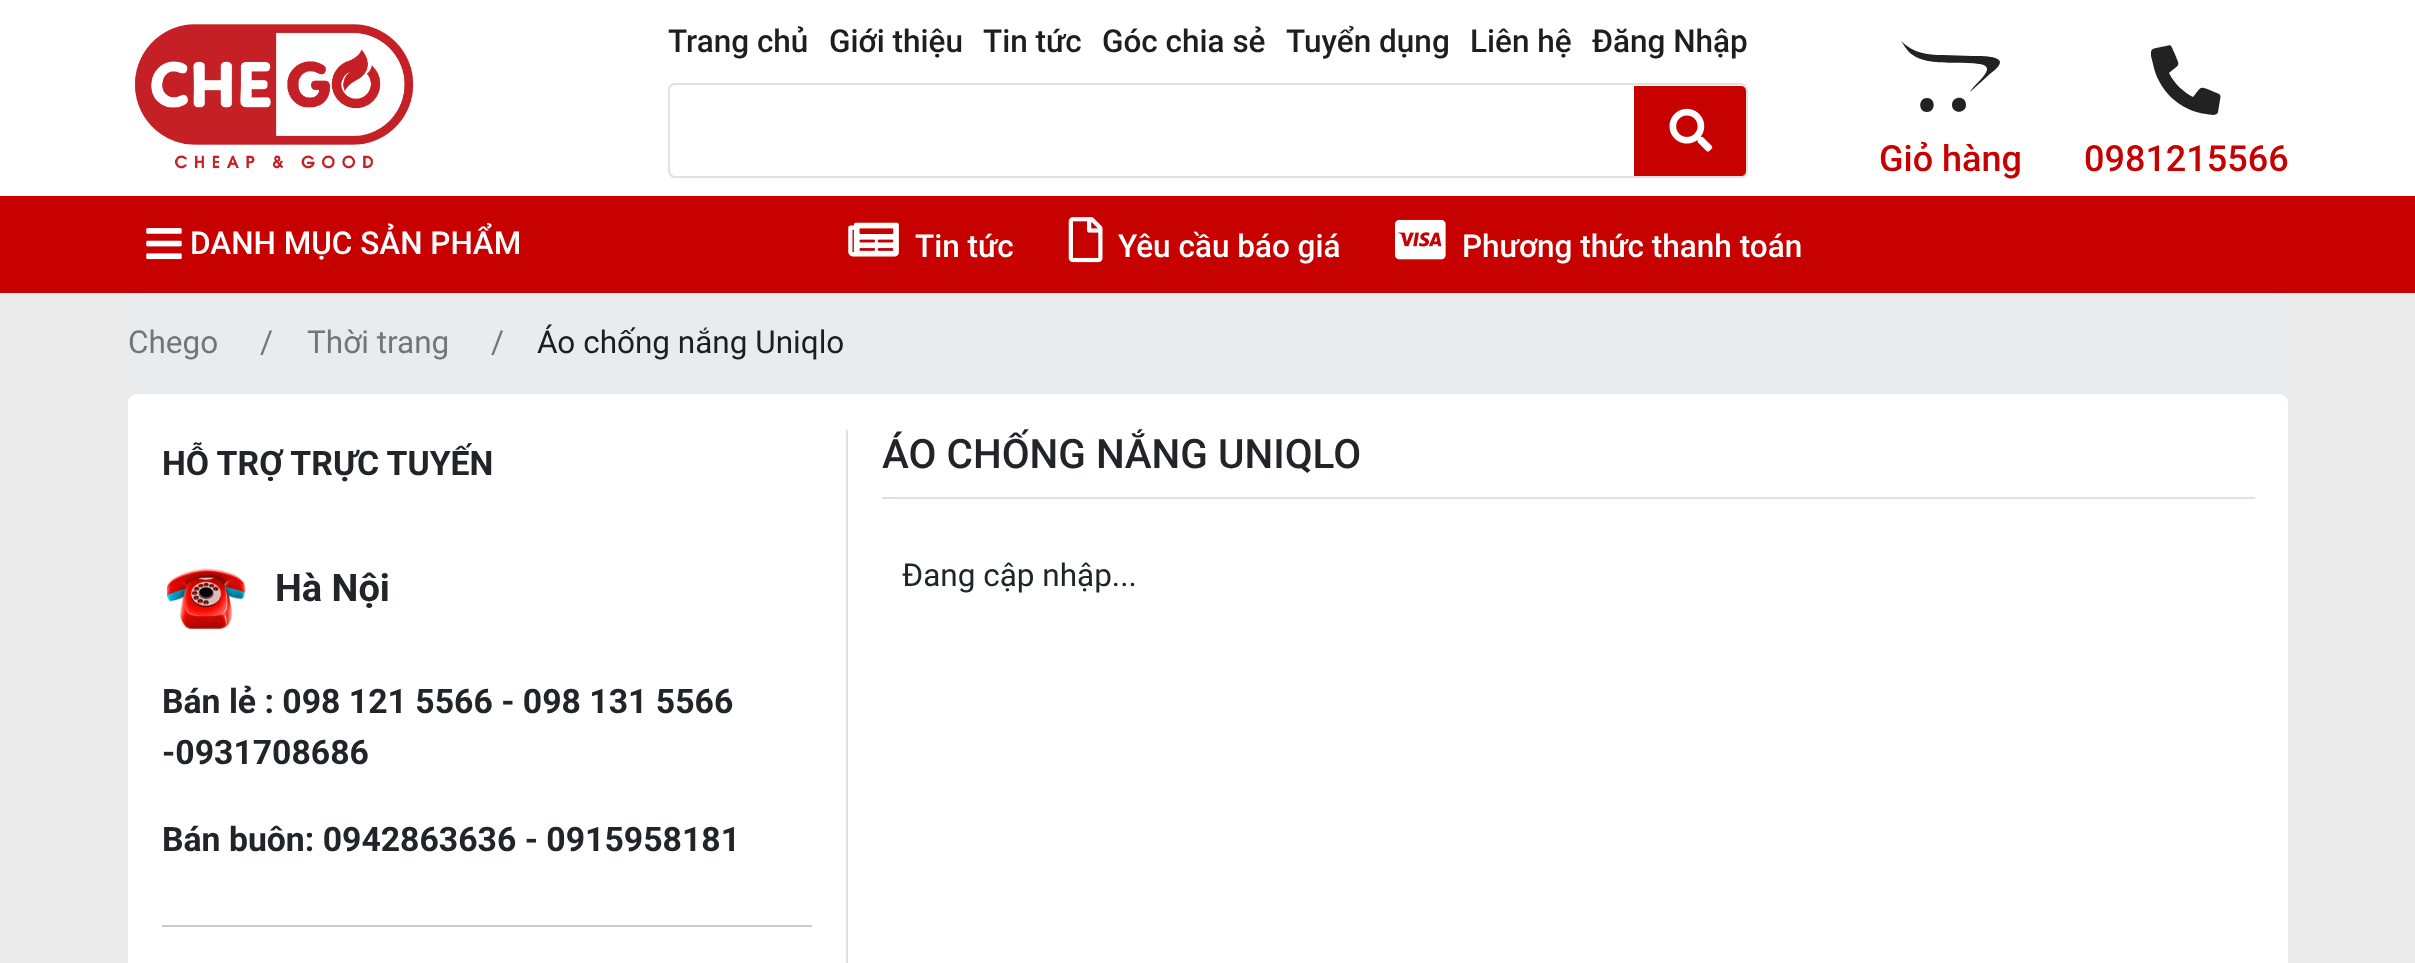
<svg xmlns="http://www.w3.org/2000/svg" width="2415" height="963">
	<rect width="100%" height="100%" fill="#FFFFFF" />
	<image x="134" y="24" width="280" height="145" href="assets/img1.png" />
	<g font-family="Roboto" font-size="31.5" font-weight="500" fill="#1E1E1E">
		<text x="668" y="52">Trang chủ</text>
		<text x="829" y="52">Giới thiệu</text>
		<text x="983" y="52">Tin tức</text>
		<text x="1102" y="52">Góc chia sẻ</text>
		<text x="1286" y="52">Tuyển dụng</text>
		<text x="1470" y="52">Liên hệ</text>
		<text x="1592" y="52">Đăng Nhập</text>
	</g>
	<rect x="669" y="84" width="1078" height="93" rx="6" fill="none" stroke="#E1E1E1" stroke-width="2" />
	<rect x="671" y="86" width="1075" height="90" rx="5" fill="#FFFFFF" />
	<path d="M1634 86H1741C1744 86 1746 88 1746 91V171C1746 174 1744 176 1741 176H1634Z" fill="#C70000" />
	<image x="1669" y="108" width="44" height="44" href="assets/img2.png" />
	<path d="M1966 105C1966 114 1952 114 1952 105C1952 96 1966 95 1966 105ZM1927 98C1918 98 1918 112 1927 112C1936 112 1936 98 1927 98ZM1972 56L1943 55C1927 55 1913 53 1901 41C1904 45 1906 49 1909 52C1926 68 1958 60 1979 64C1982 64 1988 66 1987 70C1985 77 1974 85 1970 92L1991 73C1994 71 2000 66 2000 62C1999 55 1976 56 1972 56Z" fill="#222222" />
	<text x="1879" y="171" font-family="Roboto" font-size="36" font-weight="500" fill="#C70000">Giỏ hàng</text>
	<path d="M2218 112L2220 100C2222 93 2218 94 2212 91C2199 86 2202 86 2193 97C2183 92 2174 83 2169 73C2181 63 2180 67 2174 52C2171 46 2172 44 2166 46L2156 48C2151 49 2151 50 2151 56L2153 64C2158 90 2180 111 2206 114C2208 114 2217 117 2218 112Z" fill="#222222" />
	<text x="2084" y="171" font-family="Roboto" font-size="36" font-weight="500" fill="#C70000">0981215566</text>
	<rect x="0" y="196" width="2415" height="97" fill="#C70000" />
	<image x="146" y="228" width="36" height="32" href="assets/img3.png" />
	<text x="190" y="254" font-family="Roboto" font-size="31.5" font-weight="500" fill="#FFFFFF">DANH MỤC SẢN PHẨM</text>
	<image x="848" y="222" width="51" height="35" href="assets/img4.png" />
	<text x="915" y="257" font-family="Roboto" font-size="31.5" font-weight="500" fill="#FFFFFF">Tin tức</text>
	<image x="1068" y="217" width="35" height="46" href="assets/img5.png" />
	<text x="1118" y="257" font-family="Roboto" font-size="31.5" font-weight="500" fill="#FFFFFF">Yêu cầu báo giá</text>
	<image x="1395" y="219" width="51" height="41" href="assets/img6.png" />
	<text x="1462" y="257" font-family="Roboto" font-size="31.5" font-weight="500" fill="#FFFFFF">Phương thức thanh toán</text>
	<rect x="0" y="293" width="2415" height="670" fill="#EAEAEA" />
	<rect x="128" y="293" width="2160" height="101" rx="9" fill="#E9ECEF" />
	<g font-family="Roboto" font-size="31.5" fill="#757575">
		<text x="128" y="353">Chego</text>
		<text x="260" y="353">/</text>
		<text x="307" y="353">Thời trang</text>
		<text x="491" y="353">/</text>
	</g>
	<text x="537" y="353" font-family="Roboto" font-size="31.5" fill="#1E1E1E">Áo chống nắng Uniqlo</text>
	<rect x="128" y="394" width="2160" height="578" rx="9" fill="#FFFFFF" />
	<rect x="846" y="430" width="2" height="533" fill="#DEE2E6" />
	<text x="162" y="475" font-family="Roboto" font-size="33.75" font-weight="700" fill="#212529">HỖ TRỢ TRỰC TUYẾN</text>
	<image x="166" y="568" width="80" height="62" href="assets/img7.png" />
	<text x="275" y="601" font-family="Roboto" font-size="38" font-weight="700" fill="#212529">Hà Nội</text>
	<rect x="162" y="925" width="650" height="2" fill="#CCCCCC" />
	<g font-family="Roboto" font-size="33.75" font-weight="700" fill="#212529">
		<text x="162" y="713">Bán lẻ : 098 121 5566 - 098 131 5566</text>
		<text x="162" y="764">-0931708686</text>
		<text x="162" y="851">Bán buôn: 0942863636 - 0915958181</text>
	</g>
	<rect x="882" y="497" width="1373" height="2" fill="#DEE2E6" />
	<text x="882" y="468" font-family="Roboto" font-size="40.5" font-weight="500" fill="#212529">ÁO CHỐNG NẮNG UNIQLO</text>
	<text x="902" y="586" font-family="Roboto" font-size="31.5" fill="#212529">Đang cập nhập...</text>
</svg>
